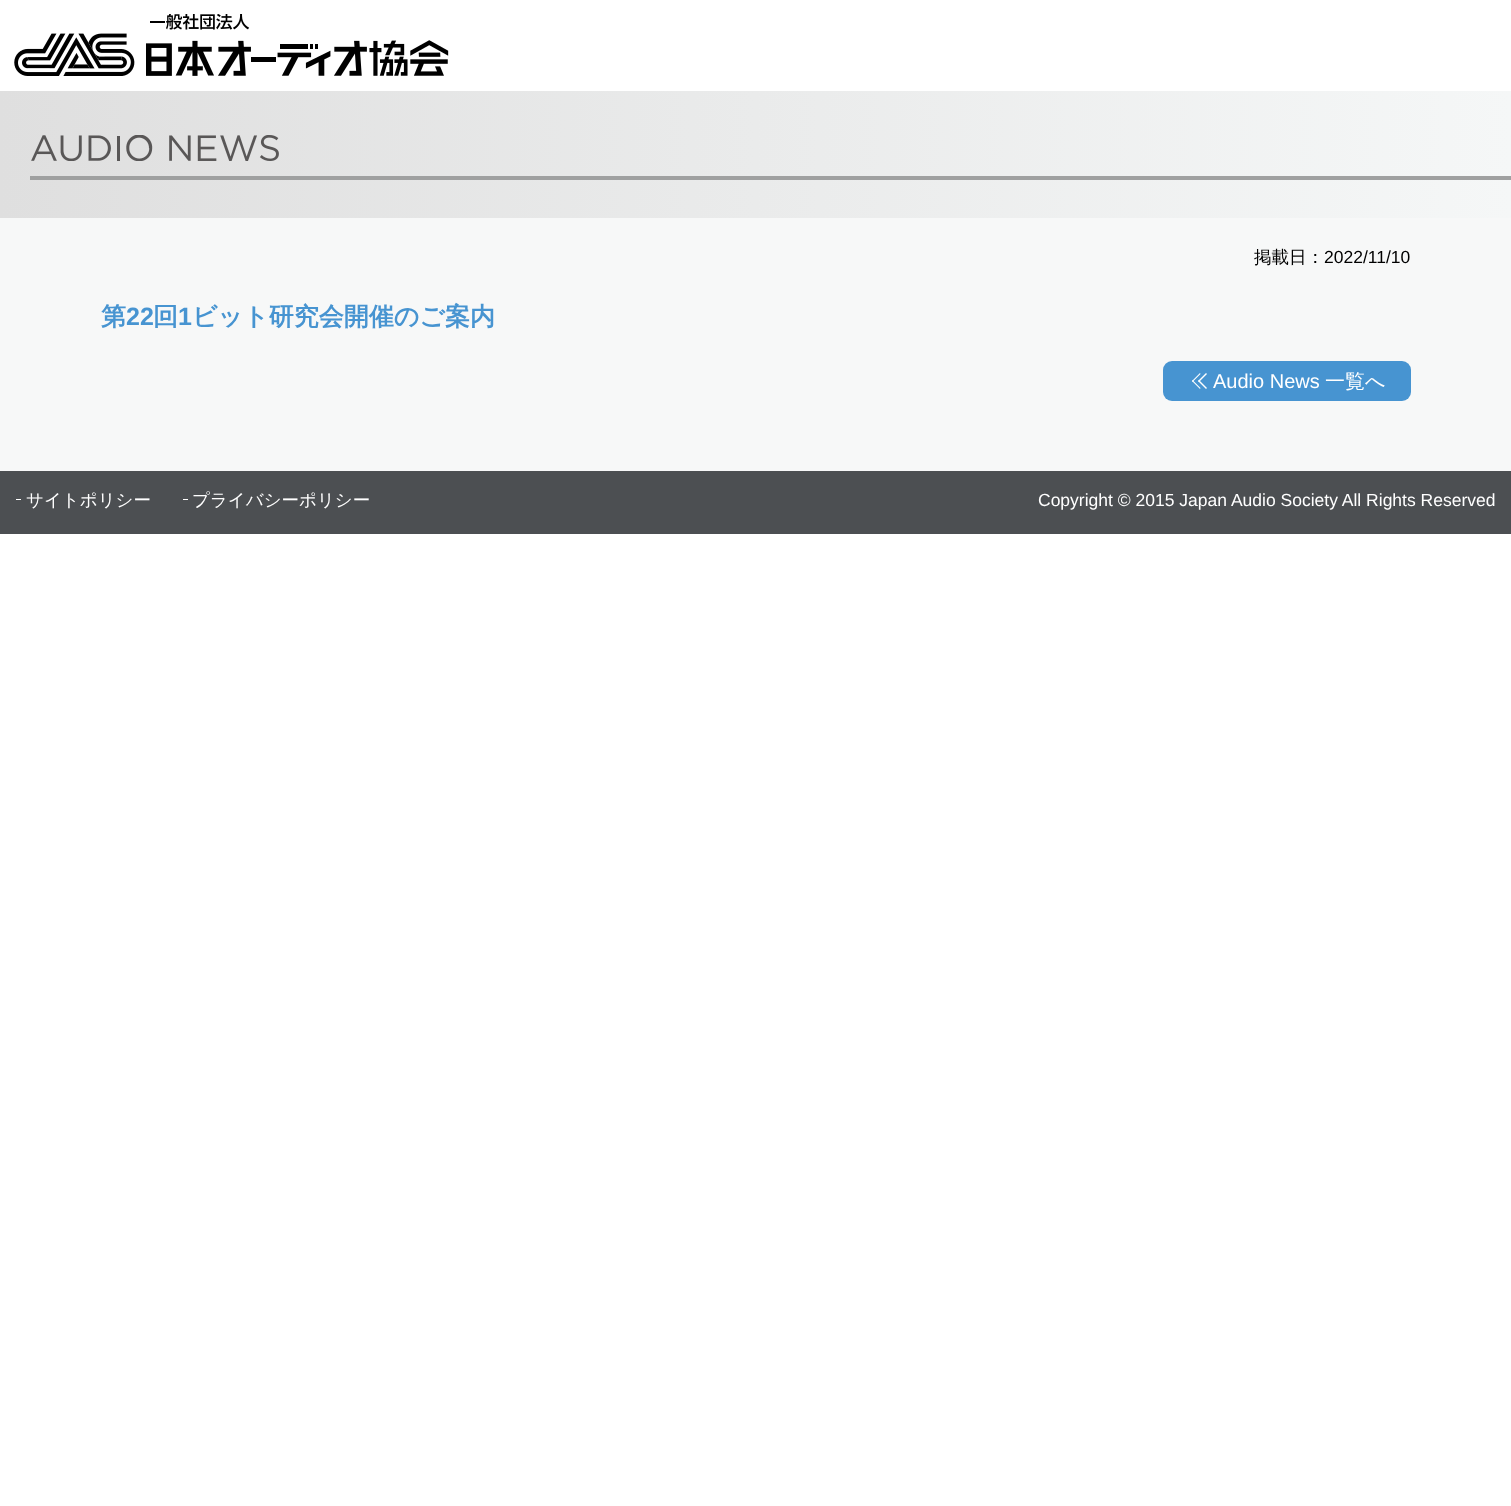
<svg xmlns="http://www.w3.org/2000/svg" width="1511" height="1506">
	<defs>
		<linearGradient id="g1" gradientUnits="userSpaceOnUse" x1="0" y1="109" x2="1511" y2="109"><stop offset="0" stop-color="#DFDFDF" /><stop offset="1" stop-color="#F5F7F7" /></linearGradient>
	</defs>
	<rect width="100%" height="100%" fill="#FFFFFF" />
	<image x="14" y="14" width="435" height="62" href="assets/img1.png" />
	<rect x="0" y="91" width="1511" height="127" fill="url(#g1)" />
	<rect x="30" y="176" width="1481" height="4" fill="#9FA0A0" />
	<image x="31" y="135" width="248" height="26" href="assets/img2.png" />
	<rect x="0" y="218" width="1511" height="253" fill="#F7F8F8" />
	<text x="1254" y="263" font-family="WenQuanYi Zen Hei" font-size="17.5" font-weight="500" fill="#000000">掲載日：</text>
	<text x="1324" y="263" font-family="Liberation Sans" font-size="17.5" fill="#000000">2022/11/10</text>
	<text x="101" y="325" font-family="WenQuanYi Zen Hei" font-size="25" font-weight="700" fill="#4794D1">第</text>
	<text x="126" y="325" font-family="Liberation Sans" font-size="25" font-weight="700" fill="#4794D1">22</text>
	<text x="153" y="325" font-family="WenQuanYi Zen Hei" font-size="25" font-weight="700" fill="#4794D1">回</text>
	<text x="178" y="325" font-family="Liberation Sans" font-size="25" font-weight="700" fill="#4794D1">1</text>
	<text x="192" y="325" font-family="WenQuanYi Zen Hei" font-size="25" font-weight="700" fill="#4794D1">ビット研究会開催のご案内</text>
	<rect x="1163" y="361" width="248" height="40" rx="9" fill="#4794D1" />
	<path d="M1192.5 380L1200.5 388L1200 389L1192 381Z" fill="#FFFFFF" />
	<path d="M1200 373L1200.5 374L1192.5 382L1192 381Z" fill="#FFFFFF" />
	<path d="M1199 380L1207 388L1206 389L1198 381Z" fill="#FFFFFF" />
	<path d="M1206 373L1207 374L1199 382L1198 381Z" fill="#FFFFFF" />
	<text x="1213" y="388" font-family="Liberation Sans" font-size="20" fill="#FFFFFF">Audio News</text>
	<text x="1325" y="388" font-family="WenQuanYi Zen Hei" font-size="20" font-weight="500" fill="#FFFFFF">一覧へ</text>
	<rect x="0" y="471" width="1511" height="63" fill="#4C4F52" />
	<rect x="16" y="499" width="5" height="1" fill="#FFFFFF" />
	<text x="26" y="506" font-family="WenQuanYi Zen Hei" font-size="17.5" font-weight="500" fill="#FFFFFF">サイトポリシー</text>
	<rect x="183" y="499" width="5" height="1" fill="#FFFFFF" />
	<text x="192" y="506" font-family="WenQuanYi Zen Hei" font-size="17.5" font-weight="500" fill="#FFFFFF">プライバシーポリシー</text>
	<text x="1038" y="506" font-family="Liberation Sans" font-size="17.5" fill="#FFFFFF">Copyright © 2015 Japan Audio Society All Rights Reserved</text>
</svg>
